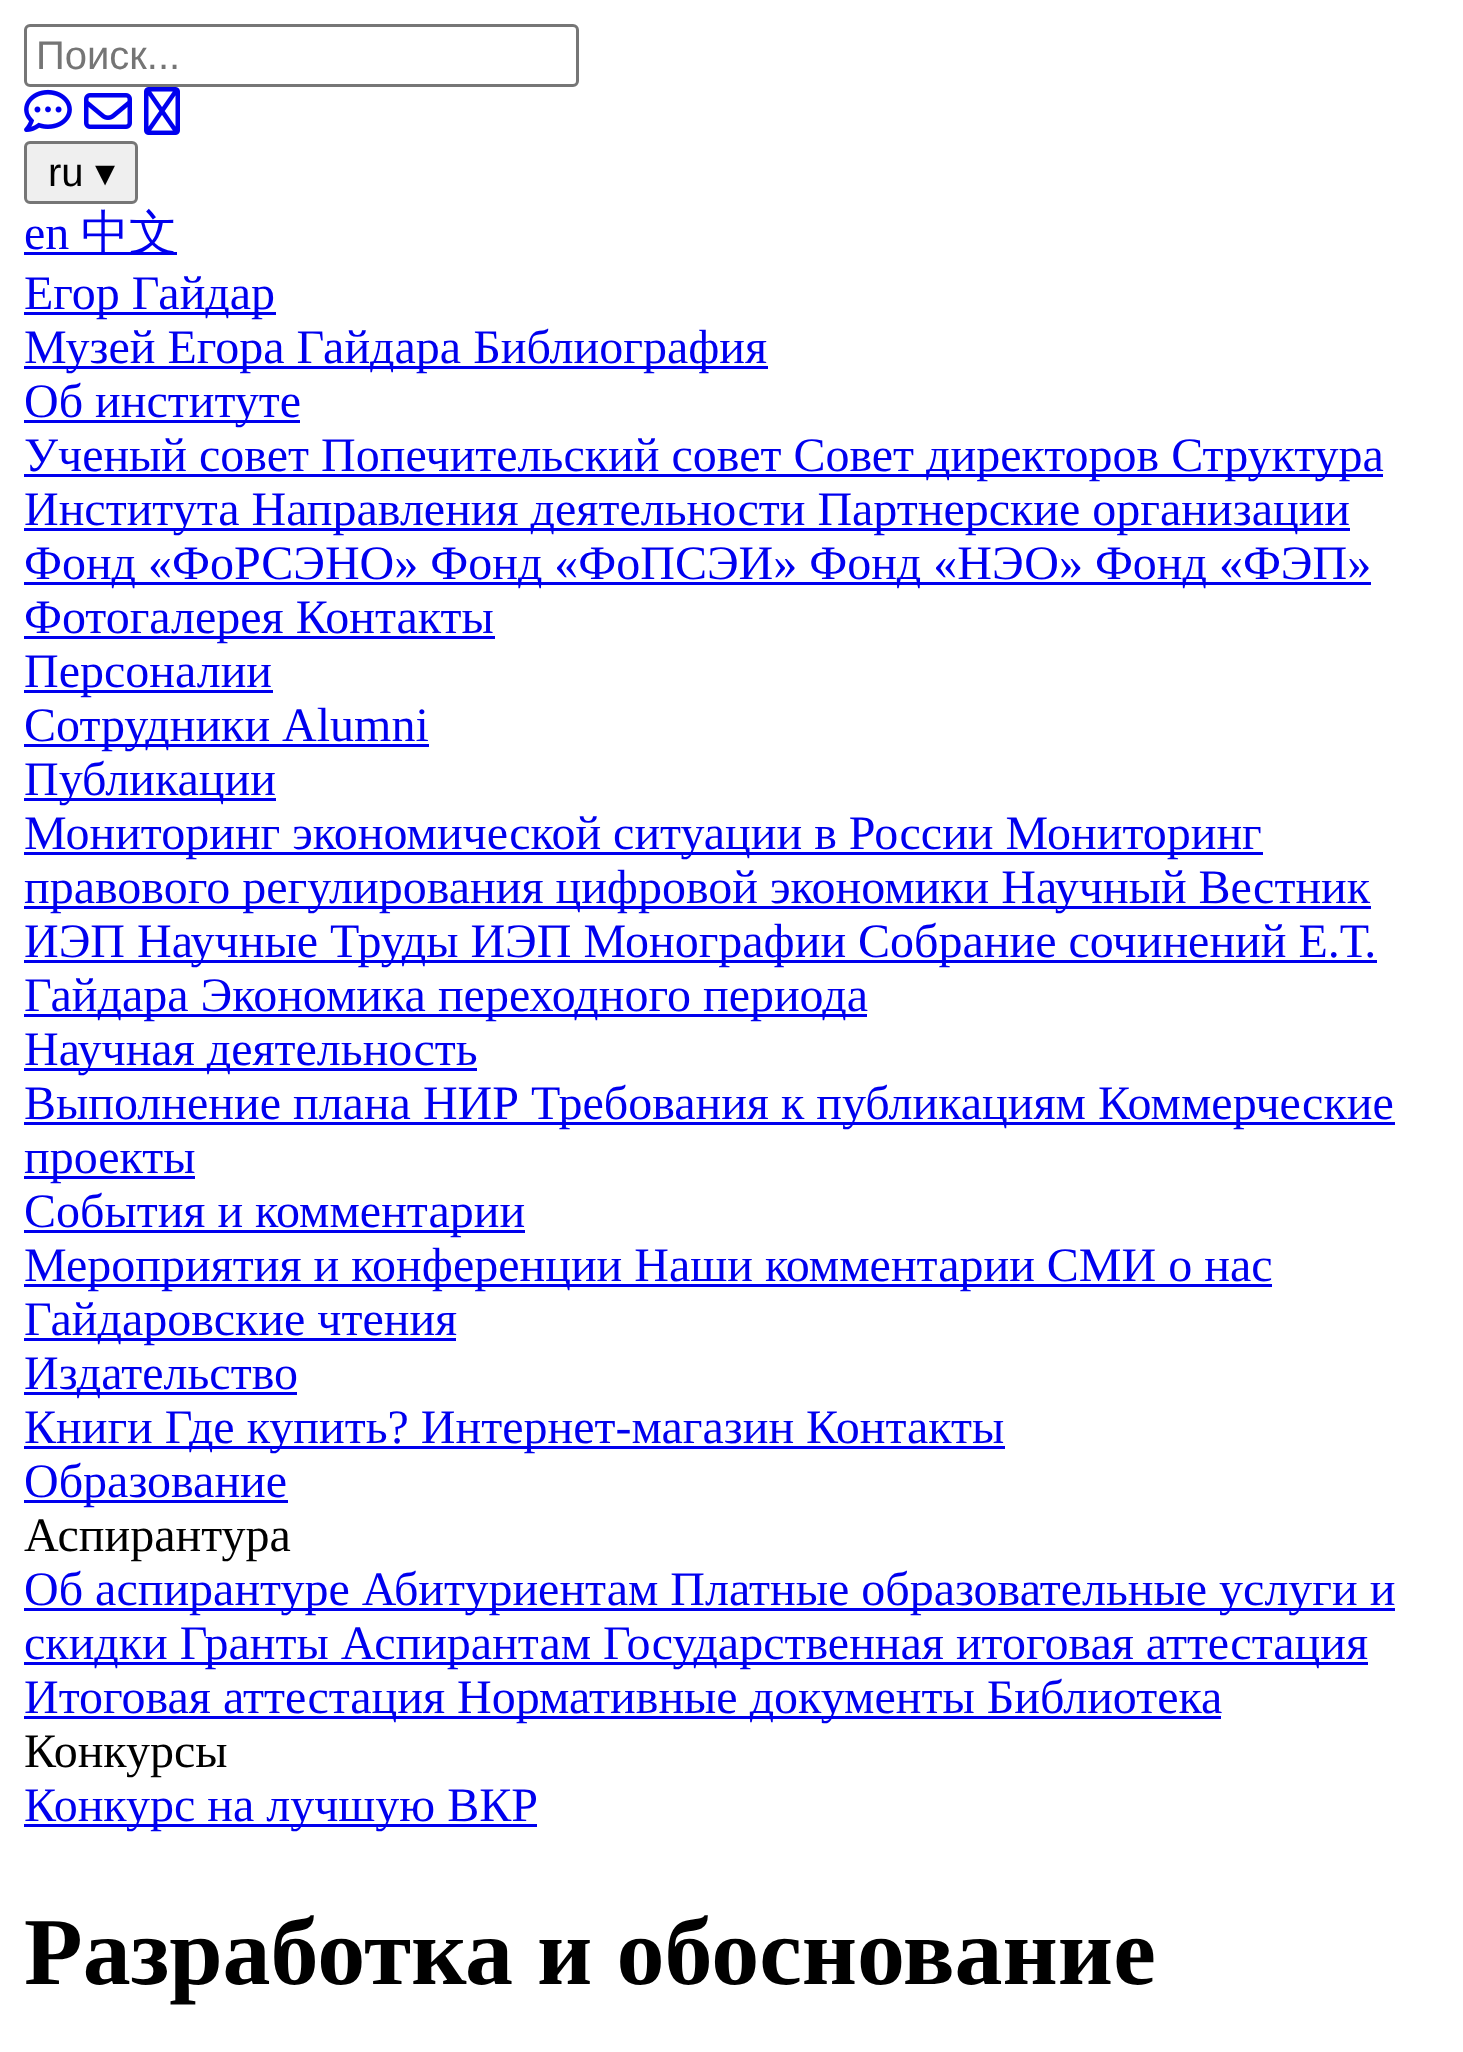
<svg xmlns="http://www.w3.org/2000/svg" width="1463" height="2052">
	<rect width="100%" height="100%" fill="#FFFFFF" />
	<rect x="25.5" y="25.5" width="552" height="60" rx="4.5" fill="none" stroke="#767676" stroke-width="3" />
	<text x="36" y="69" font-family="Liberation Sans" font-size="40" fill="#757575">Поиск...</text>
	<image x="24" y="89" width="48" height="43" href="assets/img1.png" />
	<image x="84" y="93" width="48" height="36" href="assets/img2.png" />
	<image x="144" y="87" width="36" height="48" href="assets/img3.png" />
	<rect x="25.5" y="142.5" width="111" height="60" rx="4.5" fill="#EFEFEF" stroke="#767676" stroke-width="3" />
	<text x="48" y="186" font-family="Liberation Sans" font-size="40" fill="#000000">ru</text>
	<text x="95" y="186" font-family="DejaVu Sans" font-size="40" fill="#000000">▾</text>
	<text x="24" y="249" font-family="Liberation Serif" font-size="48" fill="#0000EE">en</text>
	<rect x="24" y="252" width="153" height="3" fill="#0000EE" />
	<text x="81" y="249" font-family="WenQuanYi Zen Hei" font-size="48" font-weight="500" fill="#0000EE">中文</text>
	<rect x="24" y="312" width="252" height="3" fill="#0000EE" />
	<text x="24" y="309" font-family="Liberation Serif" font-size="48" fill="#0000EE">Егор Гайдар</text>
	<rect x="24" y="366" width="744" height="3" fill="#0000EE" />
	<text x="24" y="363" font-family="Liberation Serif" font-size="48" fill="#0000EE">Музей Егора Гайдара Библиография</text>
	<rect x="24" y="420" width="276" height="3" fill="#0000EE" />
	<text x="24" y="417" font-family="Liberation Serif" font-size="48" fill="#0000EE">Об институте</text>
	<rect x="24" y="474" width="1359" height="3" fill="#0000EE" />
	<text x="24" y="471" font-family="Liberation Serif" font-size="48" fill="#0000EE">Ученый совет Попечительский совет Совет директоров Структура</text>
	<rect x="24" y="528" width="1326" height="3" fill="#0000EE" />
	<text x="24" y="525" font-family="Liberation Serif" font-size="48" fill="#0000EE">Института Направления деятельности Партнерские организации</text>
	<rect x="24" y="582" width="1347" height="3" fill="#0000EE" />
	<text x="24" y="579" font-family="Liberation Serif" font-size="48" fill="#0000EE">Фонд «ФоРСЭНО» Фонд «ФоПСЭИ» Фонд «НЭО» Фонд «ФЭП»</text>
	<rect x="24" y="636" width="471" height="3" fill="#0000EE" />
	<text x="24" y="633" font-family="Liberation Serif" font-size="48" fill="#0000EE">Фотогалерея Контакты</text>
	<rect x="24" y="690" width="249" height="3" fill="#0000EE" />
	<text x="24" y="687" font-family="Liberation Serif" font-size="48" fill="#0000EE">Персоналии</text>
	<rect x="24" y="744" width="405" height="3" fill="#0000EE" />
	<text x="24" y="741" font-family="Liberation Serif" font-size="48" fill="#0000EE">Сотрудники Alumni</text>
	<rect x="24" y="798" width="252" height="3" fill="#0000EE" />
	<text x="24" y="795" font-family="Liberation Serif" font-size="48" fill="#0000EE">Публикации</text>
	<rect x="24" y="852" width="1239" height="3" fill="#0000EE" />
	<text x="24" y="849" font-family="Liberation Serif" font-size="48" fill="#0000EE">Мониторинг экономической ситуации в России Мониторинг</text>
	<rect x="24" y="906" width="1347" height="3" fill="#0000EE" />
	<text x="24" y="903" font-family="Liberation Serif" font-size="48" fill="#0000EE">правового регулирования цифровой экономики Научный Вестник</text>
	<rect x="24" y="960" width="1353" height="3" fill="#0000EE" />
	<text x="24" y="957" font-family="Liberation Serif" font-size="48" fill="#0000EE">ИЭП Научные Труды ИЭП Монографии Собрание сочинений Е.Т.</text>
	<rect x="24" y="1014" width="843" height="3" fill="#0000EE" />
	<text x="24" y="1011" font-family="Liberation Serif" font-size="48" fill="#0000EE">Гайдара Экономика переходного периода</text>
	<rect x="24" y="1068" width="453" height="3" fill="#0000EE" />
	<text x="24" y="1065" font-family="Liberation Serif" font-size="48" fill="#0000EE">Научная деятельность</text>
	<rect x="24" y="1122" width="1371" height="3" fill="#0000EE" />
	<text x="24" y="1119" font-family="Liberation Serif" font-size="48" fill="#0000EE">Выполнение плана НИР Требования к публикациям Коммерческие</text>
	<rect x="24" y="1176" width="171" height="3" fill="#0000EE" />
	<text x="24" y="1173" font-family="Liberation Serif" font-size="48" fill="#0000EE">проекты</text>
	<rect x="24" y="1230" width="501" height="3" fill="#0000EE" />
	<text x="24" y="1227" font-family="Liberation Serif" font-size="48" fill="#0000EE">События и комментарии</text>
	<rect x="24" y="1284" width="1248" height="3" fill="#0000EE" />
	<text x="24" y="1281" font-family="Liberation Serif" font-size="48" fill="#0000EE">Мероприятия и конференции Наши комментарии СМИ о нас</text>
	<rect x="24" y="1338" width="432" height="3" fill="#0000EE" />
	<text x="24" y="1335" font-family="Liberation Serif" font-size="48" fill="#0000EE">Гайдаровские чтения</text>
	<rect x="24" y="1392" width="273" height="3" fill="#0000EE" />
	<text x="24" y="1389" font-family="Liberation Serif" font-size="48" fill="#0000EE">Издательство</text>
	<rect x="24" y="1446" width="981" height="3" fill="#0000EE" />
	<text x="24" y="1443" font-family="Liberation Serif" font-size="48" fill="#0000EE">Книги Где купить? Интернет-магазин Контакты</text>
	<rect x="24" y="1500" width="264" height="3" fill="#0000EE" />
	<text x="24" y="1497" font-family="Liberation Serif" font-size="48" fill="#0000EE">Образование</text>
	<text x="24" y="1551" font-family="Liberation Serif" font-size="48" fill="#000000">Аспирантура</text>
	<rect x="24" y="1608" width="1371" height="3" fill="#0000EE" />
	<text x="24" y="1605" font-family="Liberation Serif" font-size="48" fill="#0000EE">Об аспирантуре Абитуриентам Платные образовательные услуги и</text>
	<rect x="24" y="1662" width="1344" height="3" fill="#0000EE" />
	<text x="24" y="1659" font-family="Liberation Serif" font-size="48" fill="#0000EE">скидки Гранты Аспирантам Государственная итоговая аттестация</text>
	<rect x="24" y="1716" width="1197" height="3" fill="#0000EE" />
	<text x="24" y="1713" font-family="Liberation Serif" font-size="48" fill="#0000EE">Итоговая аттестация Нормативные документы Библиотека</text>
	<text x="24" y="1767" font-family="Liberation Serif" font-size="48" fill="#000000">Конкурсы</text>
	<rect x="24" y="1824" width="513" height="3" fill="#0000EE" />
	<text x="24" y="1821" font-family="Liberation Serif" font-size="48" fill="#0000EE">Конкурс на лучшую ВКР</text>
	<text x="24" y="1984" font-family="Liberation Serif" font-size="96" font-weight="700" fill="#000000">Разработка и обоснование</text>
</svg>
